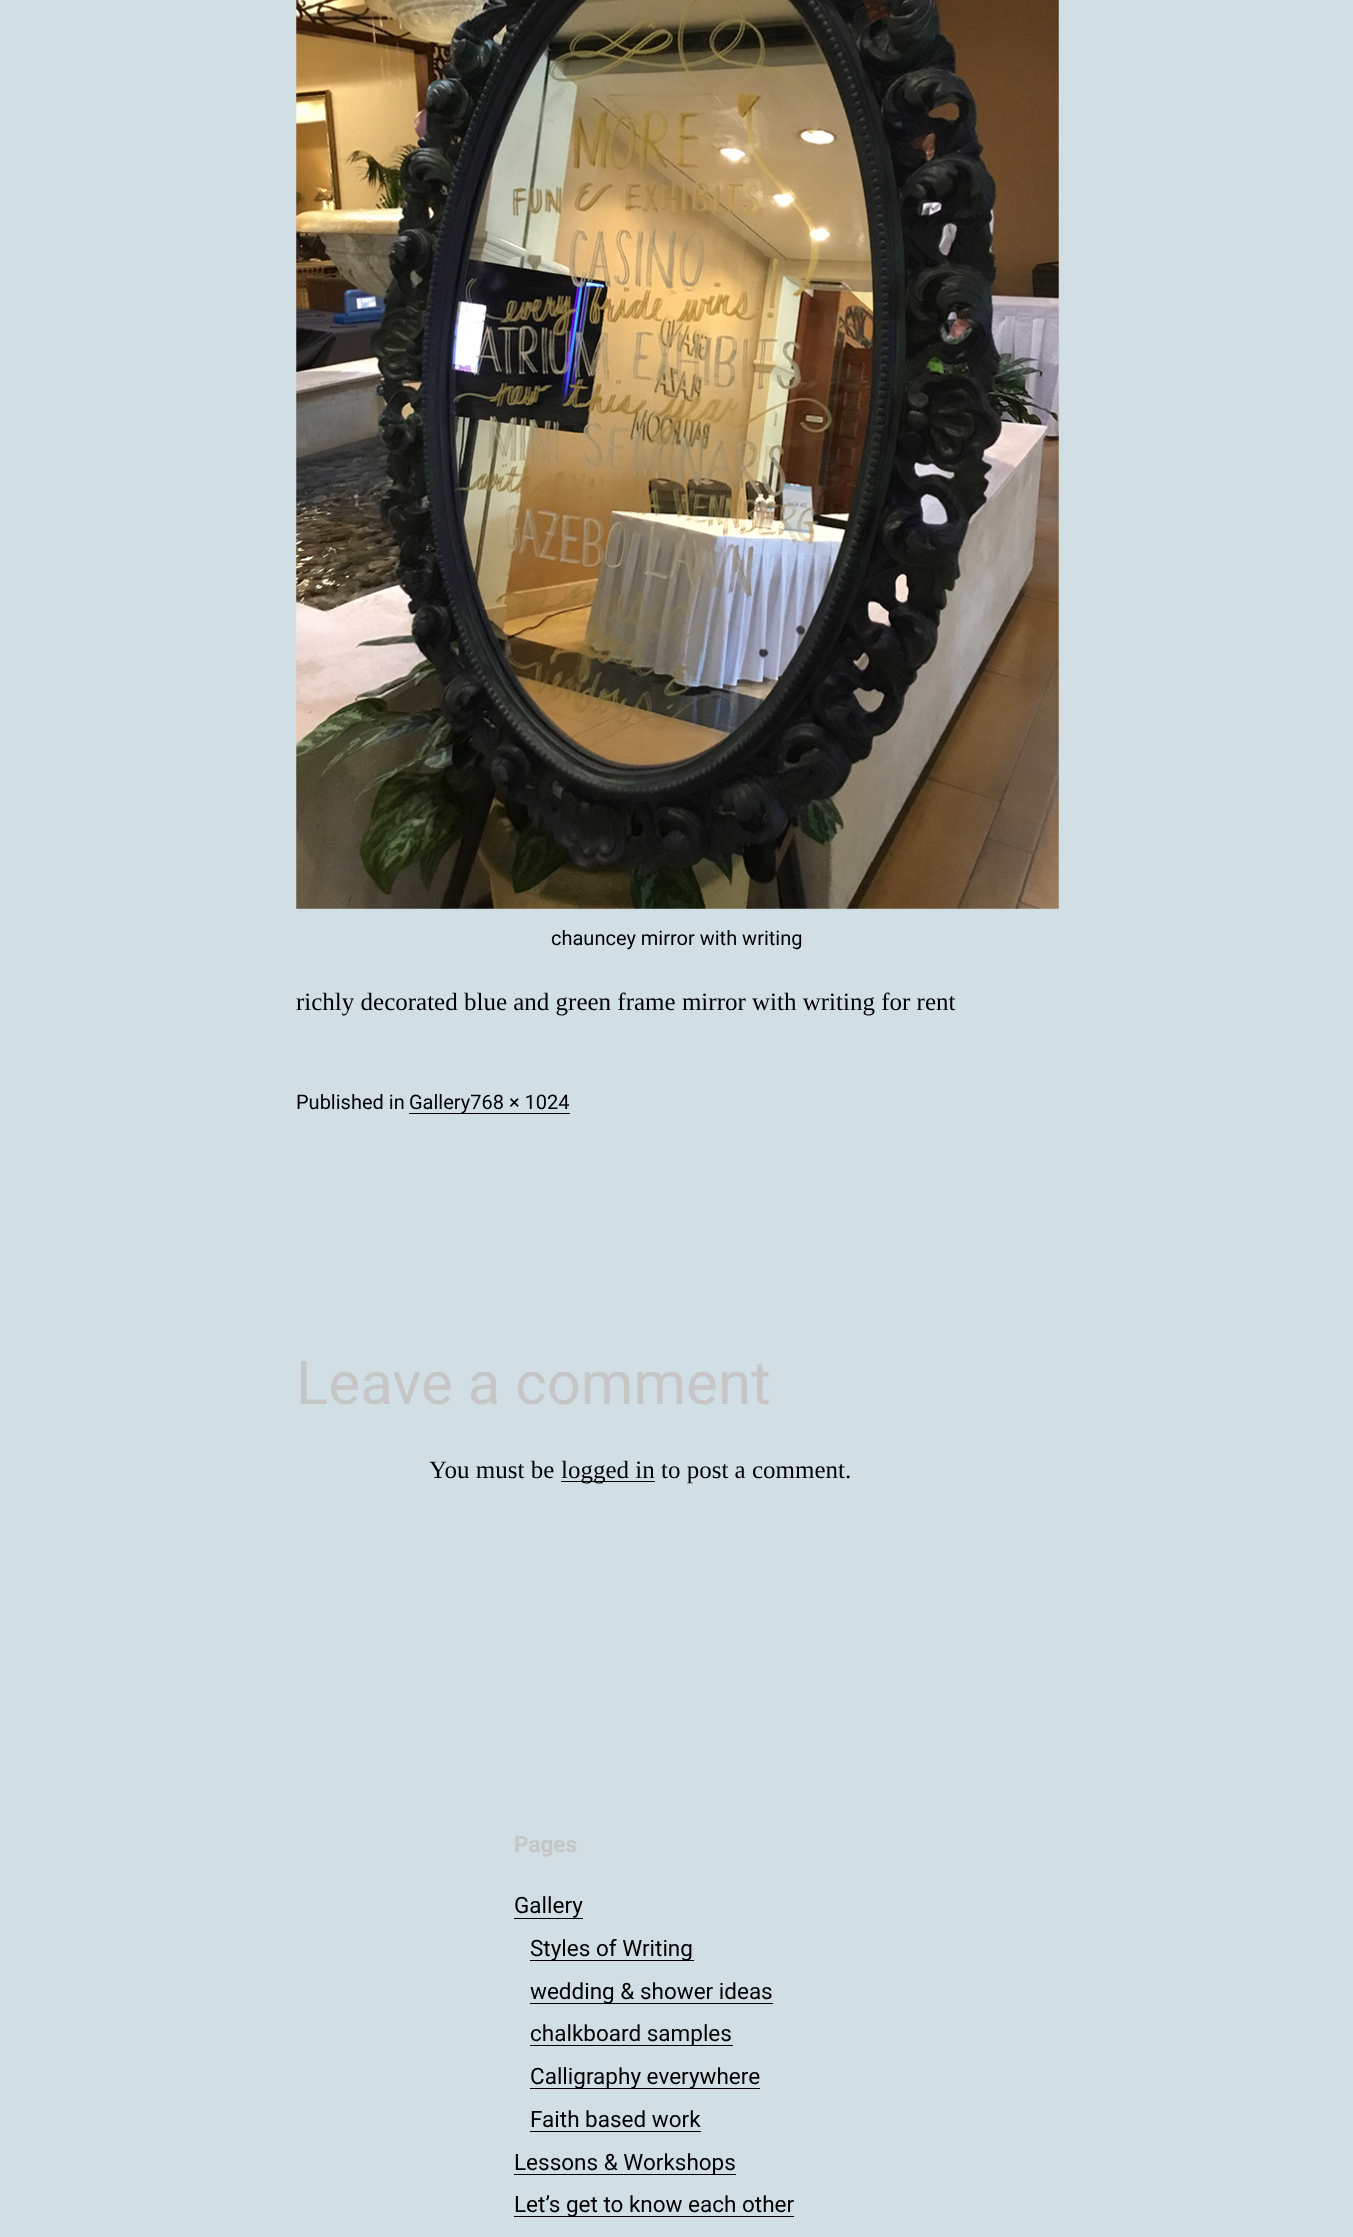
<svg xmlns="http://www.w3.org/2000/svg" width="1353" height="2237">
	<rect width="100%" height="100%" fill="#D1DFE4" />
	<image x="296" y="0" width="763" height="909" href="assets/img1.png" />
	<text x="551" y="945" font-family="Roboto" font-size="20" fill="#000000">chauncey mirror with writing</text>
	<text x="296" y="1010" font-family="Liberation Serif" font-size="25" fill="#000000">richly decorated blue and green frame mirror with writing for rent</text>
	<text x="296" y="1109" font-family="Roboto" font-size="20" fill="#000000">Published in</text>
	<rect x="409" y="1113" width="61" height="1" fill="#000000" />
	<text x="409" y="1109" font-family="Roboto" font-size="20" fill="#000000">Gallery768 × 1024</text>
	<rect x="470" y="1113" width="100" height="1" fill="#000000" />
	<text x="296" y="1404" font-family="Roboto" font-size="60" fill="#C6C6C6">Leave a comment</text>
	<text x="429" y="1478" font-family="Liberation Serif" font-size="25" fill="#000000">You must be</text>
	<rect x="561" y="1481" width="94" height="1" fill="#000000" />
	<text x="561" y="1478" font-family="Liberation Serif" font-size="25" fill="#000000">logged in to post a comment.</text>
	<text x="514" y="1852" font-family="Roboto" font-size="22.5" font-weight="700" fill="#C6C6C6">Pages</text>
	<text x="514" y="1913" font-family="Roboto" font-size="22.5" fill="#000000">Gallery</text>
	<rect x="514" y="1918" width="69" height="1" fill="#000000" />
	<rect x="530" y="1960" width="164" height="1" fill="#000000" />
	<text x="530" y="1956" font-family="Roboto" font-size="22.5" fill="#000000">Styles of Writing</text>
	<rect x="530" y="2003" width="243" height="1" fill="#000000" />
	<text x="530" y="1999" font-family="Roboto" font-size="22.5" fill="#000000">wedding &amp; shower ideas</text>
	<rect x="530" y="2045" width="203" height="1" fill="#000000" />
	<text x="530" y="2041" font-family="Roboto" font-size="22.5" fill="#000000">chalkboard samples</text>
	<rect x="530" y="2088" width="230" height="1" fill="#000000" />
	<g font-family="Roboto" font-size="22.5" fill="#000000">
		<text x="530" y="2084">Calligraphy everywhere</text>
		<text x="530" y="2127">Faith based work</text>
	</g>
	<rect x="530" y="2131" width="171" height="1" fill="#000000" />
	<rect x="514" y="2174" width="222" height="1" fill="#000000" />
	<text x="514" y="2170" font-family="Roboto" font-size="22.5" fill="#000000">Lessons &amp; Workshops</text>
	<rect x="514" y="2216" width="280" height="1" fill="#000000" />
	<text x="514" y="2212" font-family="Roboto" font-size="22.5" fill="#000000">Let’s get to know each other</text>
</svg>
